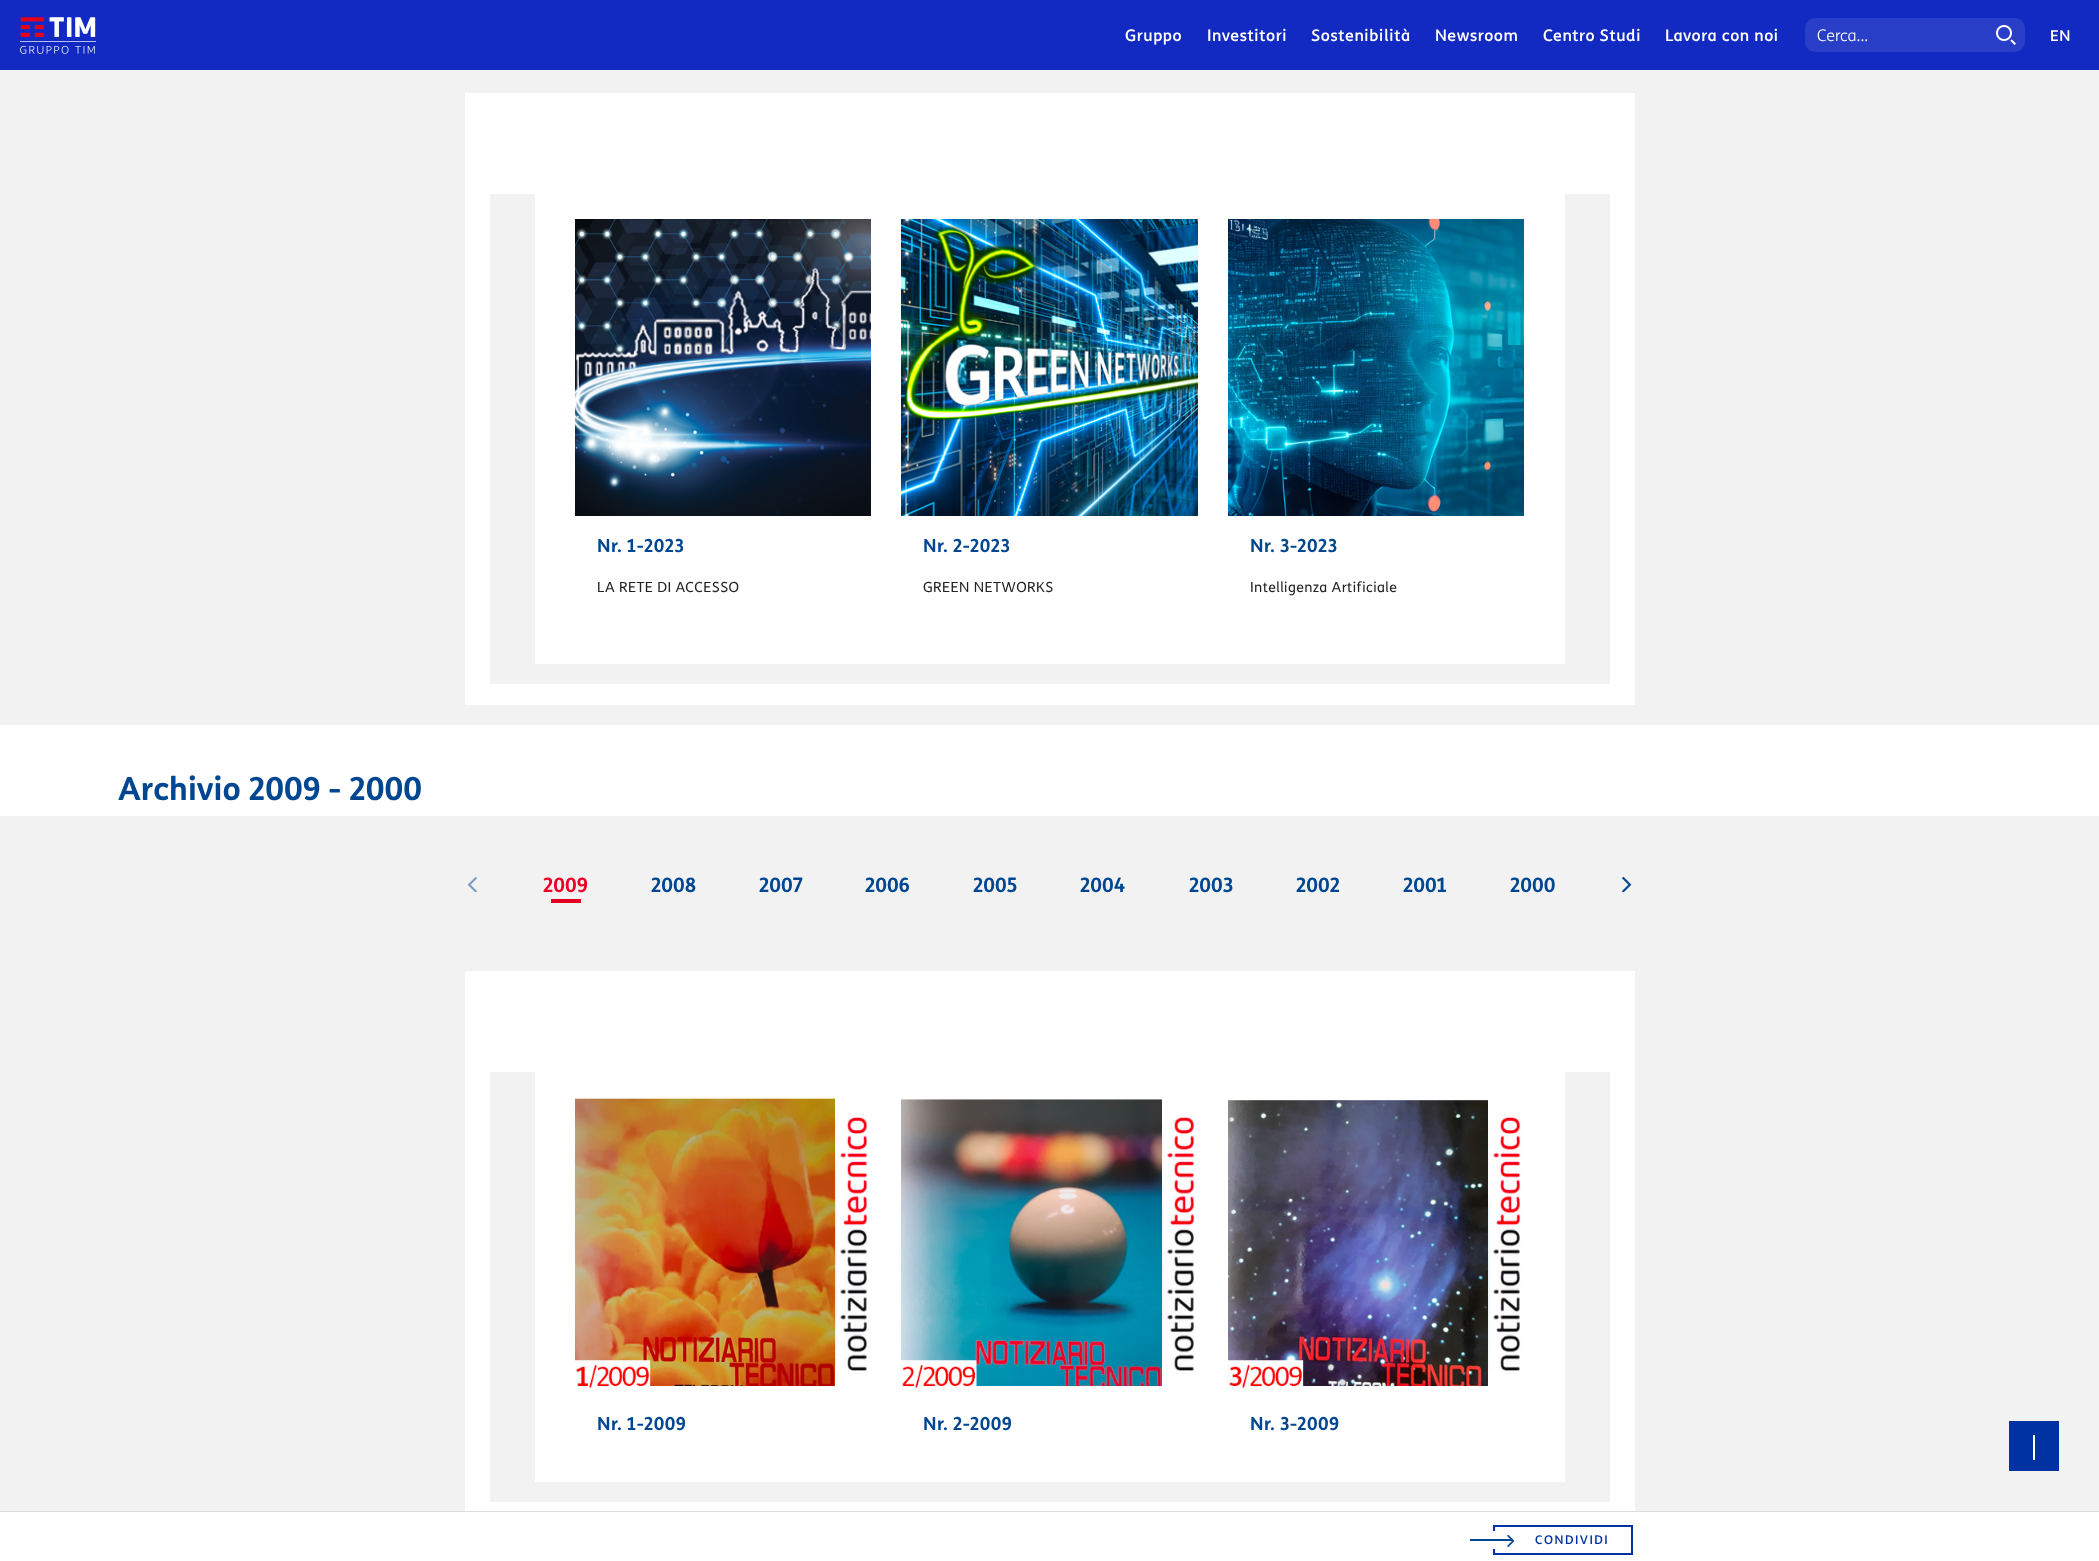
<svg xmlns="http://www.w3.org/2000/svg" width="2099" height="1561">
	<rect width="100%" height="100%" fill="#FFFFFF" />
	<rect x="0" y="70" width="2099" height="655" fill="#F2F2F2" />
	<rect x="465" y="93" width="1170" height="612" fill="#FFFFFF" />
	<rect x="490" y="194" width="1120" height="490" fill="#F2F2F2" />
	<rect x="535" y="194" width="1030" height="470" fill="#FFFFFF" />
	<image x="575" y="219" width="296" height="297" href="assets/img1.png" />
	<text x="597" y="552" font-family="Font" font-size="18" font-weight="700" letter-spacing="0.4" fill="#004691">Nr. 1-2023</text>
	<text x="597" y="592" font-family="Font" font-size="14" letter-spacing="0.4" fill="#222222">LA RETE DI ACCESSO</text>
	<image x="901" y="219" width="297" height="297" href="assets/img2.png" />
	<text x="923" y="552" font-family="Font" font-size="18" font-weight="700" letter-spacing="0.4" fill="#004691">Nr. 2-2023</text>
	<text x="923" y="592" font-family="Font" font-size="14" letter-spacing="0.4" fill="#222222">GREEN NETWORKS</text>
	<image x="1228" y="219" width="296" height="297" href="assets/img3.png" />
	<text x="1250" y="552" font-family="Font" font-size="18" font-weight="700" letter-spacing="0.4" fill="#004691">Nr. 3-2023</text>
	<text x="1250" y="592" font-family="Font" font-size="14" letter-spacing="0.4" fill="#222222">Intelligenza Artificiale</text>
	<text x="118" y="800" font-family="Font" font-size="32" font-weight="700" fill="#004691">Archivio 2009 - 2000</text>
	<rect x="0" y="816" width="2099" height="695" fill="#F2F2F2" />
	<image x="467" y="877" width="10" height="15" href="assets/img4.png" />
	<text x="543" y="892" font-family="Font" font-size="20" font-weight="700" fill="#EB0028">2009</text>
	<rect x="551" y="899" width="30" height="4" fill="#E1001E" />
	<g font-family="Font" font-size="20" font-weight="700" fill="#004691">
		<text x="651" y="892">2008</text>
		<text x="759" y="892">2007</text>
		<text x="865" y="892">2006</text>
		<text x="973" y="892">2005</text>
		<text x="1080" y="892">2004</text>
		<text x="1189" y="892">2003</text>
		<text x="1296" y="892">2002</text>
		<text x="1403" y="892">2001</text>
		<text x="1510" y="892">2000</text>
	</g>
	<image x="1622" y="876" width="10" height="16" href="assets/img5.png" />
	<rect x="465" y="971" width="1170" height="540" fill="#FFFFFF" />
	<rect x="490" y="1072" width="1120" height="430" fill="#F2F2F2" />
	<rect x="535" y="1072" width="1030" height="410" fill="#FFFFFF" />
	<image x="575" y="1098" width="294" height="290" href="assets/img6.png" />
	<text x="597" y="1430" font-family="Font" font-size="18" font-weight="700" letter-spacing="0.4" fill="#004691">Nr. 1-2009</text>
	<image x="901" y="1099" width="295" height="289" href="assets/img7.png" />
	<text x="923" y="1430" font-family="Font" font-size="18" font-weight="700" letter-spacing="0.4" fill="#004691">Nr. 2-2009</text>
	<image x="1228" y="1100" width="294" height="288" href="assets/img8.png" />
	<text x="1250" y="1430" font-family="Font" font-size="18" font-weight="700" letter-spacing="0.4" fill="#004691">Nr. 3-2009</text>
	<rect x="0" y="0" width="2099" height="70" fill="#122AC2" />
	<image x="20" y="17" width="76" height="37" href="assets/img9.png" />
	<g font-family="Font" font-size="16" font-weight="500" letter-spacing="0.5" fill="#FFFFFF">
		<text x="1125" y="41">Gruppo</text>
		<text x="1207" y="41">Investitori</text>
		<text x="1311" y="41">Sostenibilità</text>
		<text x="1435" y="41">Newsroom</text>
		<text x="1543" y="41">Centro Studi</text>
		<text x="1665" y="41">Lavora con noi</text>
	</g>
	<rect x="1805" y="18" width="220" height="34" rx="10" fill="#2A3FC8" />
	<text x="1817" y="41" font-family="Font" font-size="16" font-weight="300" fill="#FFFFFF">Cerca...</text>
	<image x="1996" y="25" width="20" height="20" href="assets/img10.png" />
	<text x="2050" y="41" font-family="Font" font-size="15" font-weight="500" letter-spacing="0.5" fill="#FFFFFF">EN</text>
	<rect x="2009" y="1421" width="50" height="50" fill="#0033A1" />
	<rect x="2033" y="1435" width="2" height="25" fill="#FFFFFF" />
	<rect x="0" y="1511" width="2099" height="1" fill="#DCDCDC" />
	<rect x="1494" y="1526" width="138" height="28" fill="none" stroke="#0033A1" stroke-width="2" />
	<rect x="1493" y="1531" width="2" height="18" fill="#FFFFFF" />
	<image x="1507" y="1534" width="8" height="13" href="assets/img11.png" />
	<rect x="1470" y="1539" width="42" height="2" fill="#004691" />
	<text x="1535" y="1544" font-family="Font" font-size="12" font-weight="500" letter-spacing="1.5" fill="#0033A1">CONDIVIDI</text>
</svg>
